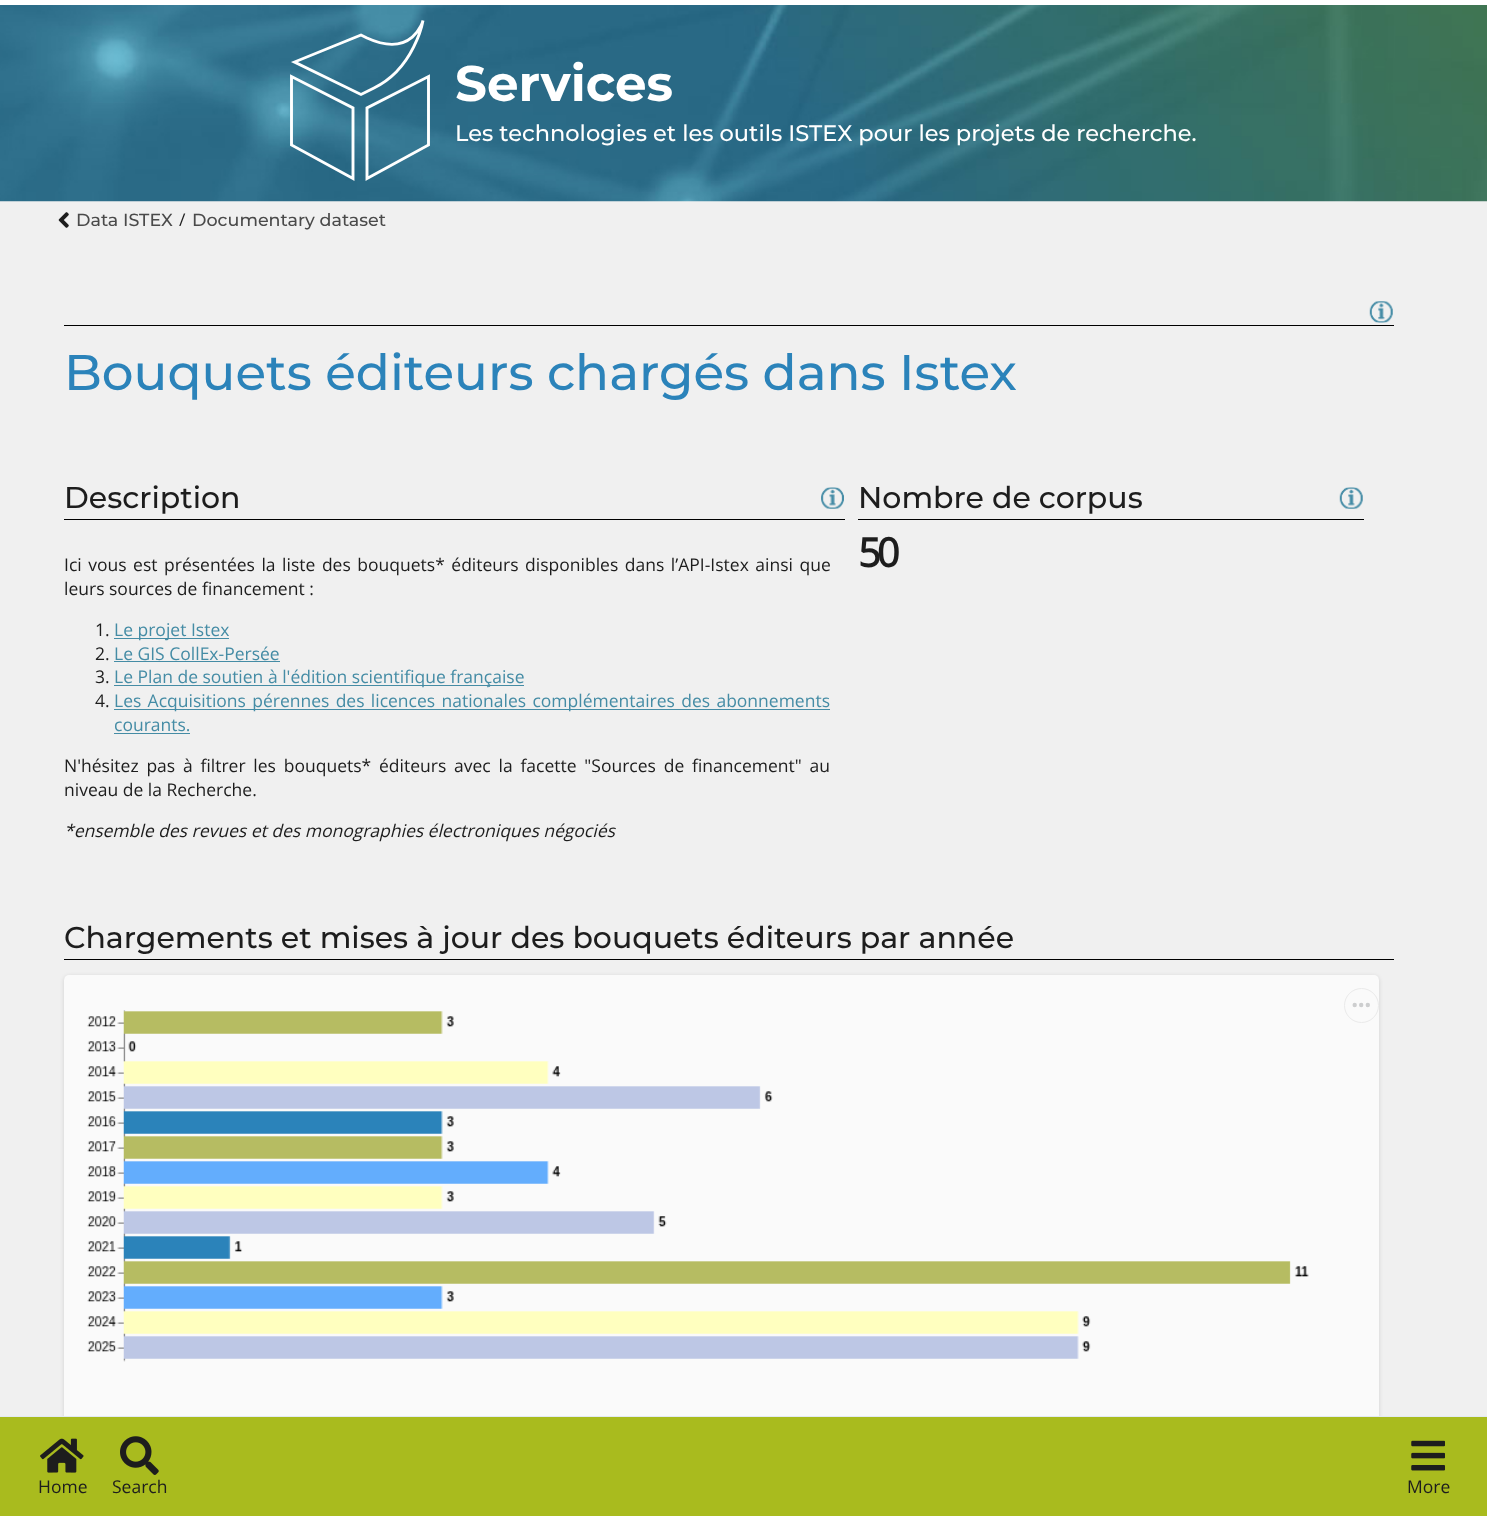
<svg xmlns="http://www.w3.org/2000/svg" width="1487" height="1516">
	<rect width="100%" height="100%" fill="#F0F0F0" />
	<rect x="0" y="0" width="1487" height="5" fill="#FFFFFF" />
	<image x="0" y="5" width="1487" height="197" href="assets/img1.png" />
	<path d="M367 38C413 59 423 20.5 423 20.5C423 20.5 414.5 68.5 374 88L361 94.5L294.5 62L361 35Z" fill="none" stroke="#FFFFFF" stroke-width="2.9" />
	<path d="M353 178.5L291.5 145V76.5L353 108Z" fill="none" stroke="#FFFFFF" stroke-width="2.9" />
	<path d="M367 178.5L428.5 145V76.5L367 108Z" fill="none" stroke="#FFFFFF" stroke-width="2.9" />
	<text x="455" y="101" font-family="Montserrat" font-size="50" font-weight="700" fill="#FFFFFF">Services</text>
	<text x="455" y="141" font-family="Montserrat" font-size="22.5" font-weight="500" fill="#FFFFFF">Les technologies et les outils ISTEX pour les projets de recherche.</text>
	<image x="58" y="212" width="11" height="16" href="assets/img2.png" />
	<text x="76" y="226" font-family="Montserrat" font-size="17.5" font-weight="500" fill="#4A4A4A">Data ISTEX</text>
	<text x="179" y="226" font-family="Open Sans" font-size="17.5" fill="#1D1D1D">/</text>
	<text x="192" y="226" font-family="Montserrat" font-size="17.5" font-weight="500" fill="#4A4A4A">Documentary dataset</text>
	<rect x="64" y="325" width="1330" height="1" fill="#000000" />
	<image x="1369" y="301" width="24" height="22" href="assets/img3.png" />
	<text x="64" y="390" font-family="Montserrat" font-size="50" font-weight="500" fill="#2B83BA">Bouquets éditeurs chargés dans Istex</text>
	<rect x="64" y="519" width="781" height="1" fill="#000000" />
	<text x="64" y="508" font-family="Montserrat" font-size="30" font-weight="500" fill="#1D1D1D">Description</text>
	<image x="821" y="487" width="23" height="22" href="assets/img4.png" />
	<g font-family="Open Sans" font-size="17.5" fill="#1D1D1D">
		<text x="64" y="571" word-spacing="2">Ici vous est présentées la liste des bouquets* éditeurs disponibles dans l’API-Istex ainsi que</text>
		<text x="64" y="595">leurs sources de financement :</text>
		<text x="95" y="636">1.</text>
	</g>
	<rect x="114" y="638" width="115" height="1" fill="#458CA5" />
	<text x="114" y="636" font-family="Open Sans" font-size="17.5" fill="#458CA5">Le projet Istex</text>
	<text x="95" y="660" font-family="Open Sans" font-size="17.5" fill="#1D1D1D">2.</text>
	<text x="114" y="660" font-family="Open Sans" font-size="17.5" fill="#458CA5">Le GIS CollEx-Persée</text>
	<rect x="114" y="661" width="166" height="1" fill="#458CA5" />
	<text x="95" y="683" font-family="Open Sans" font-size="17.5" fill="#1D1D1D">3.</text>
	<rect x="114" y="685" width="410" height="1" fill="#458CA5" />
	<text x="114" y="683" font-family="Open Sans" font-size="17.5" fill="#458CA5">Le Plan de soutien à l'édition scientifique française</text>
	<text x="95" y="707" font-family="Open Sans" font-size="17.5" fill="#1D1D1D">4.</text>
	<rect x="114" y="709" width="716" height="1" fill="#458CA5" />
	<g font-family="Open Sans" font-size="17.5" fill="#458CA5">
		<text x="114" y="707" word-spacing="1.75">Les Acquisitions pérennes des licences nationales complémentaires des abonnements</text>
		<text x="114" y="731">courants.</text>
	</g>
	<rect x="114" y="733" width="76" height="1" fill="#458CA5" />
	<g font-family="Open Sans" font-size="17.5" fill="#1D1D1D">
		<text x="64" y="772" word-spacing="3.25">N'hésitez pas à filtrer les bouquets* éditeurs avec la facette "Sources de financement" au</text>
		<text x="64" y="796">niveau de la Recherche.</text>
	</g>
	<text x="64" y="837" font-family="Open Sans" font-size="17.5" font-style="italic" fill="#1D1D1D">*ensemble des revues et des monographies électroniques négociés</text>
	<rect x="858" y="519" width="506" height="1" fill="#000000" />
	<text x="858" y="508" font-family="Montserrat" font-size="30" font-weight="500" fill="#1D1D1D">Nombre de corpus</text>
	<image x="1339" y="487" width="24" height="22" href="assets/img5.png" />
	<text x="858" y="567" font-family="Open Sans" font-size="40" font-weight="700" letter-spacing="-4" fill="#1D1D1D">50</text>
	<rect x="64" y="959" width="1330" height="1" fill="#000000" />
	<text x="64" y="948" font-family="Montserrat" font-size="30" font-weight="500" fill="#1D1D1D">Chargements et mises à jour des bouquets éditeurs par année</text>
	<rect x="64" y="976" width="1315" height="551" rx="5" fill="#000000" fill-opacity="0.12" filter="blur(2px)" />
	<rect x="64" y="976" width="1315" height="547" rx="5" fill="#000000" fill-opacity="0.14" filter="blur(0.5px)" />
	<rect x="64" y="975" width="1315" height="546" rx="5" fill="#FAFAFA" />
	<circle cx="1361.5" cy="1005.5" r="17" fill="none" stroke="#EAEAEA" />
	<circle cx="1354.7" cy="1005" r="2.2" fill="#CDCECF" />
	<circle cx="1361.2" cy="1005" r="2.2" fill="#CDCECF" />
	<circle cx="1367.8" cy="1005" r="2.2" fill="#CDCECF" />
	<image x="87" y="1010" width="1222" height="352" href="assets/img6.png" />
	<rect x="0" y="1417" width="1487" height="99" fill="#A9BB1E" />
	<rect x="0" y="1416" width="1487" height="1" fill="#E3EAF2" />
	<image x="40" y="1438" width="44" height="35" href="assets/img7.png" />
	<text x="38" y="1493" font-family="Open Sans" font-size="17.5" fill="#1D1D1D">Home</text>
	<image x="120" y="1436" width="39" height="39" href="assets/img8.png" />
	<text x="112" y="1493" font-family="Open Sans" font-size="17.5" fill="#1D1D1D">Search</text>
	<image x="1411" y="1440" width="34" height="31" href="assets/img9.png" />
	<text x="1407" y="1493" font-family="Open Sans" font-size="17.5" fill="#1D1D1D">More</text>
</svg>
